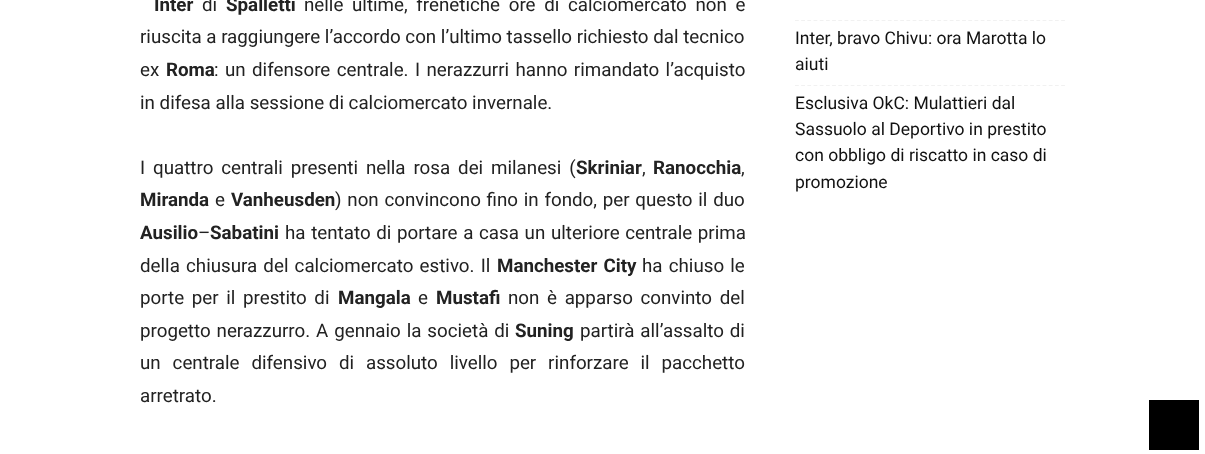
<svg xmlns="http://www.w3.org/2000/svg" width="1205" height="454">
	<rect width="100%" height="100%" fill="#FFFFFF" />
	<text x="154" y="11" font-family="Roboto" font-size="18.75" font-weight="700" fill="#222222">Inter</text>
	<text x="202" y="11" font-family="Roboto" font-size="18.75" fill="#222222">di</text>
	<text x="226" y="11" font-family="Roboto" font-size="18.75" font-weight="700" fill="#222222">Spalletti</text>
	<g font-family="Roboto" font-size="18.75" fill="#222222">
		<text x="304" y="11" word-spacing="4">nelle ultime, frenetiche ore di calciomercato non è</text>
		<text x="140" y="43">riuscita a raggiungere l’accordo con l’ultimo tassello richiesto dal tecnico</text>
		<text x="140" y="76">ex</text>
	</g>
	<text x="166" y="76" font-family="Roboto" font-size="18.75" font-weight="700" fill="#222222">Roma</text>
	<g font-family="Roboto" font-size="18.75" fill="#222222">
		<text x="214" y="76" word-spacing="1.75">: un difensore centrale. I nerazzurri hanno rimandato l’acquisto</text>
		<text x="140" y="109">in difesa alla sessione di calciomercato invernale.</text>
		<text x="140" y="174" word-spacing="3.25">I quattro centrali presenti nella rosa dei milanesi (</text>
	</g>
	<text x="576" y="174" font-family="Roboto" font-size="18.75" font-weight="700" fill="#222222">Skriniar</text>
	<text x="642" y="174" font-family="Roboto" font-size="18.75" fill="#222222">,</text>
	<text x="653" y="174" font-family="Roboto" font-size="18.75" font-weight="700" fill="#222222">Ranocchia</text>
	<text x="741" y="174" font-family="Roboto" font-size="18.75" fill="#222222">,</text>
	<text x="140" y="206" font-family="Roboto" font-size="18.75" font-weight="700" fill="#222222">Miranda</text>
	<text x="215" y="206" font-family="Roboto" font-size="18.75" fill="#222222">e</text>
	<text x="231" y="206" font-family="Roboto" font-size="18.75" font-weight="700" fill="#222222">Vanheusden</text>
	<text x="335" y="206" word-spacing="1.1" font-family="Roboto" font-size="18.75" fill="#222222">) non convincono fino in fondo, per questo il duo</text>
	<text x="140" y="239" font-family="Roboto" font-size="18.75" font-weight="700" fill="#222222">Ausilio</text>
	<text x="198" y="239" font-family="Roboto" font-size="18.75" fill="#222222">–</text>
	<text x="210" y="239" font-family="Roboto" font-size="18.75" font-weight="700" fill="#222222">Sabatini</text>
	<g font-family="Roboto" font-size="18.75" fill="#222222">
		<text x="285" y="239" word-spacing="1">ha tentato di portare a casa un ulteriore centrale prima</text>
		<text x="140" y="272" word-spacing="1.5">della chiusura del calciomercato estivo. Il</text>
	</g>
	<text x="497" y="272" word-spacing="1.5" font-family="Roboto" font-size="18.75" font-weight="700" fill="#222222">Manchester City</text>
	<g font-family="Roboto" font-size="18.75" fill="#222222">
		<text x="642" y="272" word-spacing="1.5">ha chiuso le</text>
		<text x="140" y="304" word-spacing="3">porte per il prestito di</text>
	</g>
	<text x="338" y="304" font-family="Roboto" font-size="18.75" font-weight="700" fill="#222222">Mangala</text>
	<text x="418" y="304" font-family="Roboto" font-size="18.75" fill="#222222">e</text>
	<text x="436" y="304" font-family="Roboto" font-size="18.75" font-weight="700" fill="#222222">Mustafi</text>
	<g font-family="Roboto" font-size="18.75" fill="#222222">
		<text x="508" y="304" word-spacing="3">non è apparso convinto del</text>
		<text x="140" y="337" word-spacing="1.25">progetto nerazzurro. A gennaio la società di</text>
	</g>
	<text x="515" y="337" font-family="Roboto" font-size="18.75" font-weight="700" fill="#222222">Suning</text>
	<g font-family="Roboto" font-size="18.75" fill="#222222">
		<text x="580" y="337" word-spacing="1.25">partirà all’assalto di</text>
		<text x="140" y="369" word-spacing="7.25">un centrale difensivo di assoluto livello per rinforzare il pacchetto</text>
		<text x="140" y="402">arretrato.</text>
	</g>
	<path d="M795 20.5H1065" fill="none" stroke="#F1F1F1" stroke-width="1.2" stroke-dasharray="3.75 2.44" />
	<path d="M795 85.5H1065" fill="none" stroke="#F1F1F1" stroke-width="1.2" stroke-dasharray="3.75 2.44" />
	<g font-family="Roboto" font-size="17.5" fill="#111111">
		<text x="795" y="44">Inter, bravo Chivu: ora Marotta lo</text>
		<text x="795" y="70">aiuti</text>
		<text x="795" y="109">Esclusiva OkC: Mulattieri dal</text>
		<text x="795" y="135">Sassuolo al Deportivo in prestito</text>
		<text x="795" y="161">con obbligo di riscatto in caso di</text>
		<text x="795" y="188">promozione</text>
	</g>
	<rect x="1149" y="400" width="50" height="50" fill="#000000" />
</svg>
